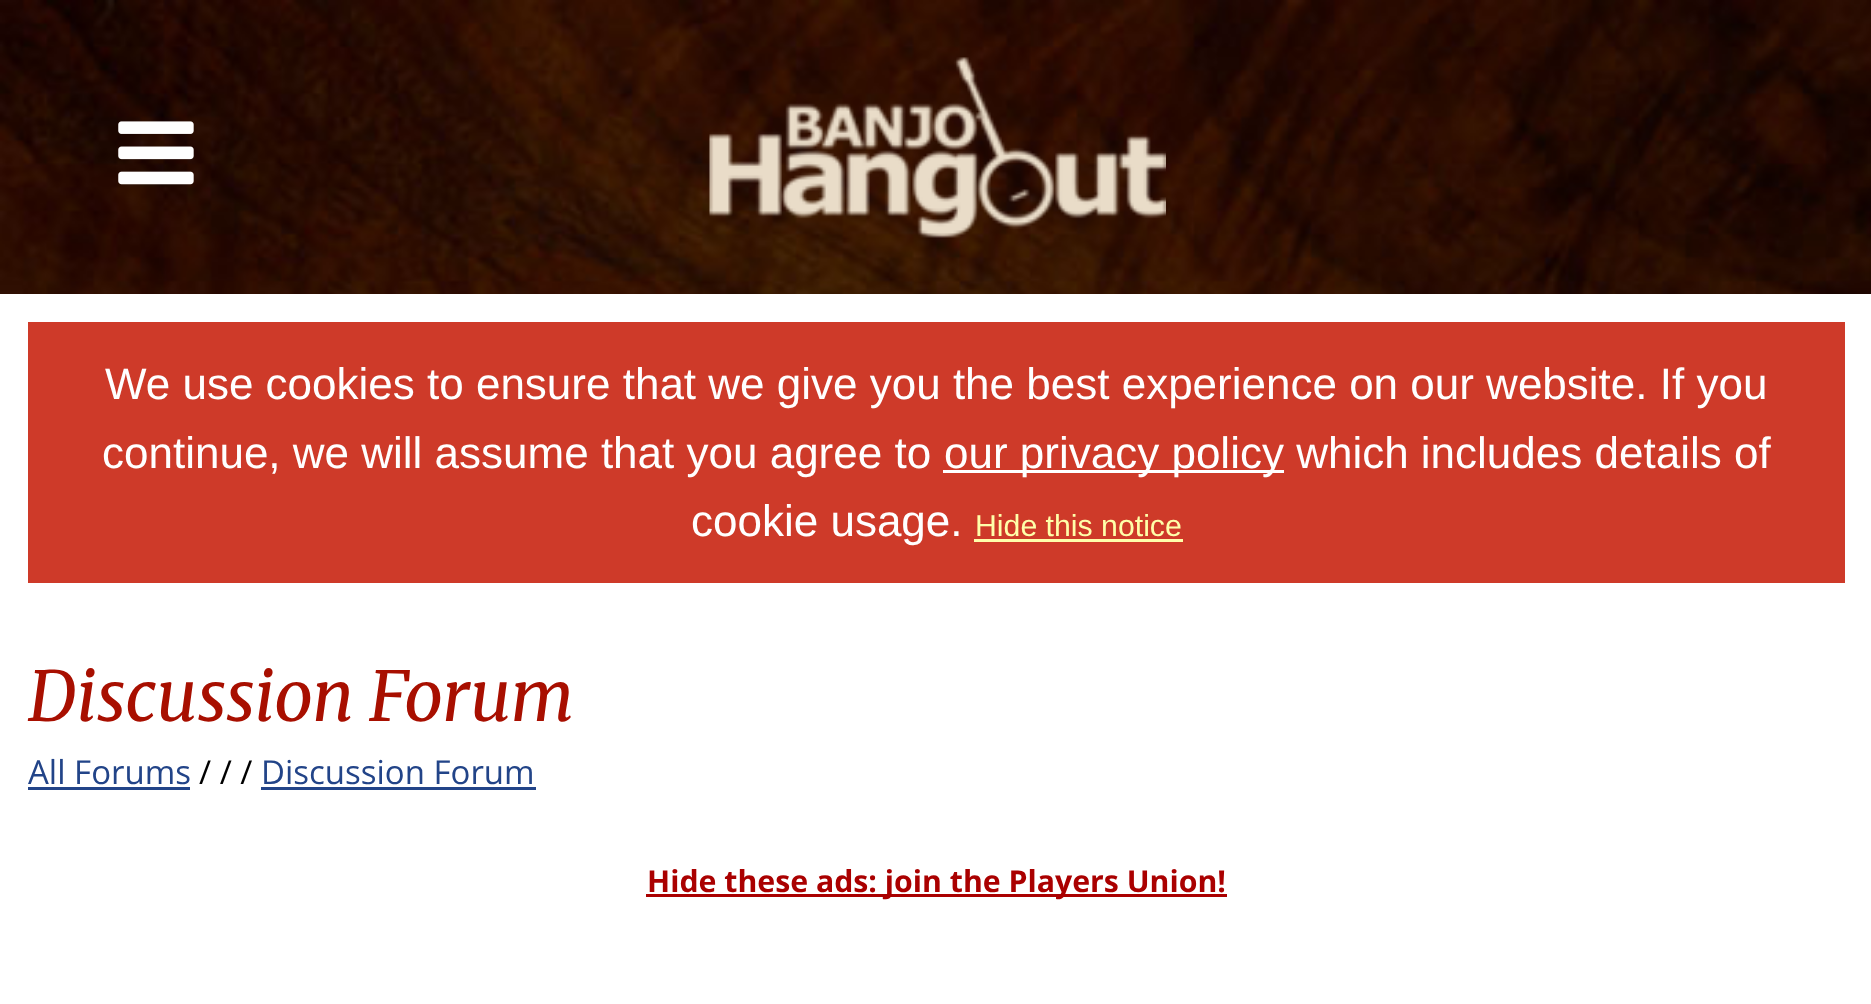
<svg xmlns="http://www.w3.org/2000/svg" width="1871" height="1004">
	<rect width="100%" height="100%" fill="#FFFFFF" />
	<image x="0" y="0" width="1871" height="294" href="assets/img1.png" />
	<image x="118" y="121" width="76" height="64" href="assets/img2.png" />
	<image x="709" y="57" width="457" height="181" href="assets/img3.png" />
	<rect x="28" y="322" width="1817" height="261" fill="#CE3A29" />
	<g font-family="Liberation Sans" font-size="44" fill="#FFFFFF">
		<text x="105" y="399">We use cookies to ensure that we give you the best experience on our website. If you</text>
		<text x="102" y="468">continue, we will assume that you agree to</text>
	</g>
	<rect x="943" y="470" width="341" height="3" fill="#FFFFFF" />
	<g font-family="Liberation Sans" font-size="44" fill="#FFFFFF">
		<text x="944" y="468">our privacy policy which includes details of</text>
		<text x="691" y="536">cookie usage.</text>
	</g>
	<text x="975" y="536" font-family="Liberation Sans" font-size="30.25" fill="#FFFFAA">Hide this notice</text>
	<rect x="974" y="539" width="209" height="3" fill="#FFFFAA" />
	<text x="28" y="721" font-family="Merriweather" font-size="68.75" font-style="italic" fill="#A80F00">Discussion Forum</text>
	<text x="28" y="784" font-family="Open Sans" font-size="33" fill="#224488">All Forums</text>
	<rect x="28" y="787" width="162" height="3" fill="#224488" />
	<text x="199" y="784" font-family="Open Sans" font-size="33" fill="#000000">/ / /</text>
	<text x="261" y="784" font-family="Open Sans" font-size="33" fill="#224488">Discussion Forum</text>
	<rect x="261" y="787" width="275" height="3" fill="#224488" />
	<rect x="646" y="894" width="581" height="3" fill="#AA0000" />
	<text x="647" y="892" font-family="Open Sans" font-size="30.25" font-weight="700" fill="#AA0000">Hide these ads: join the Players Union!</text>
</svg>
